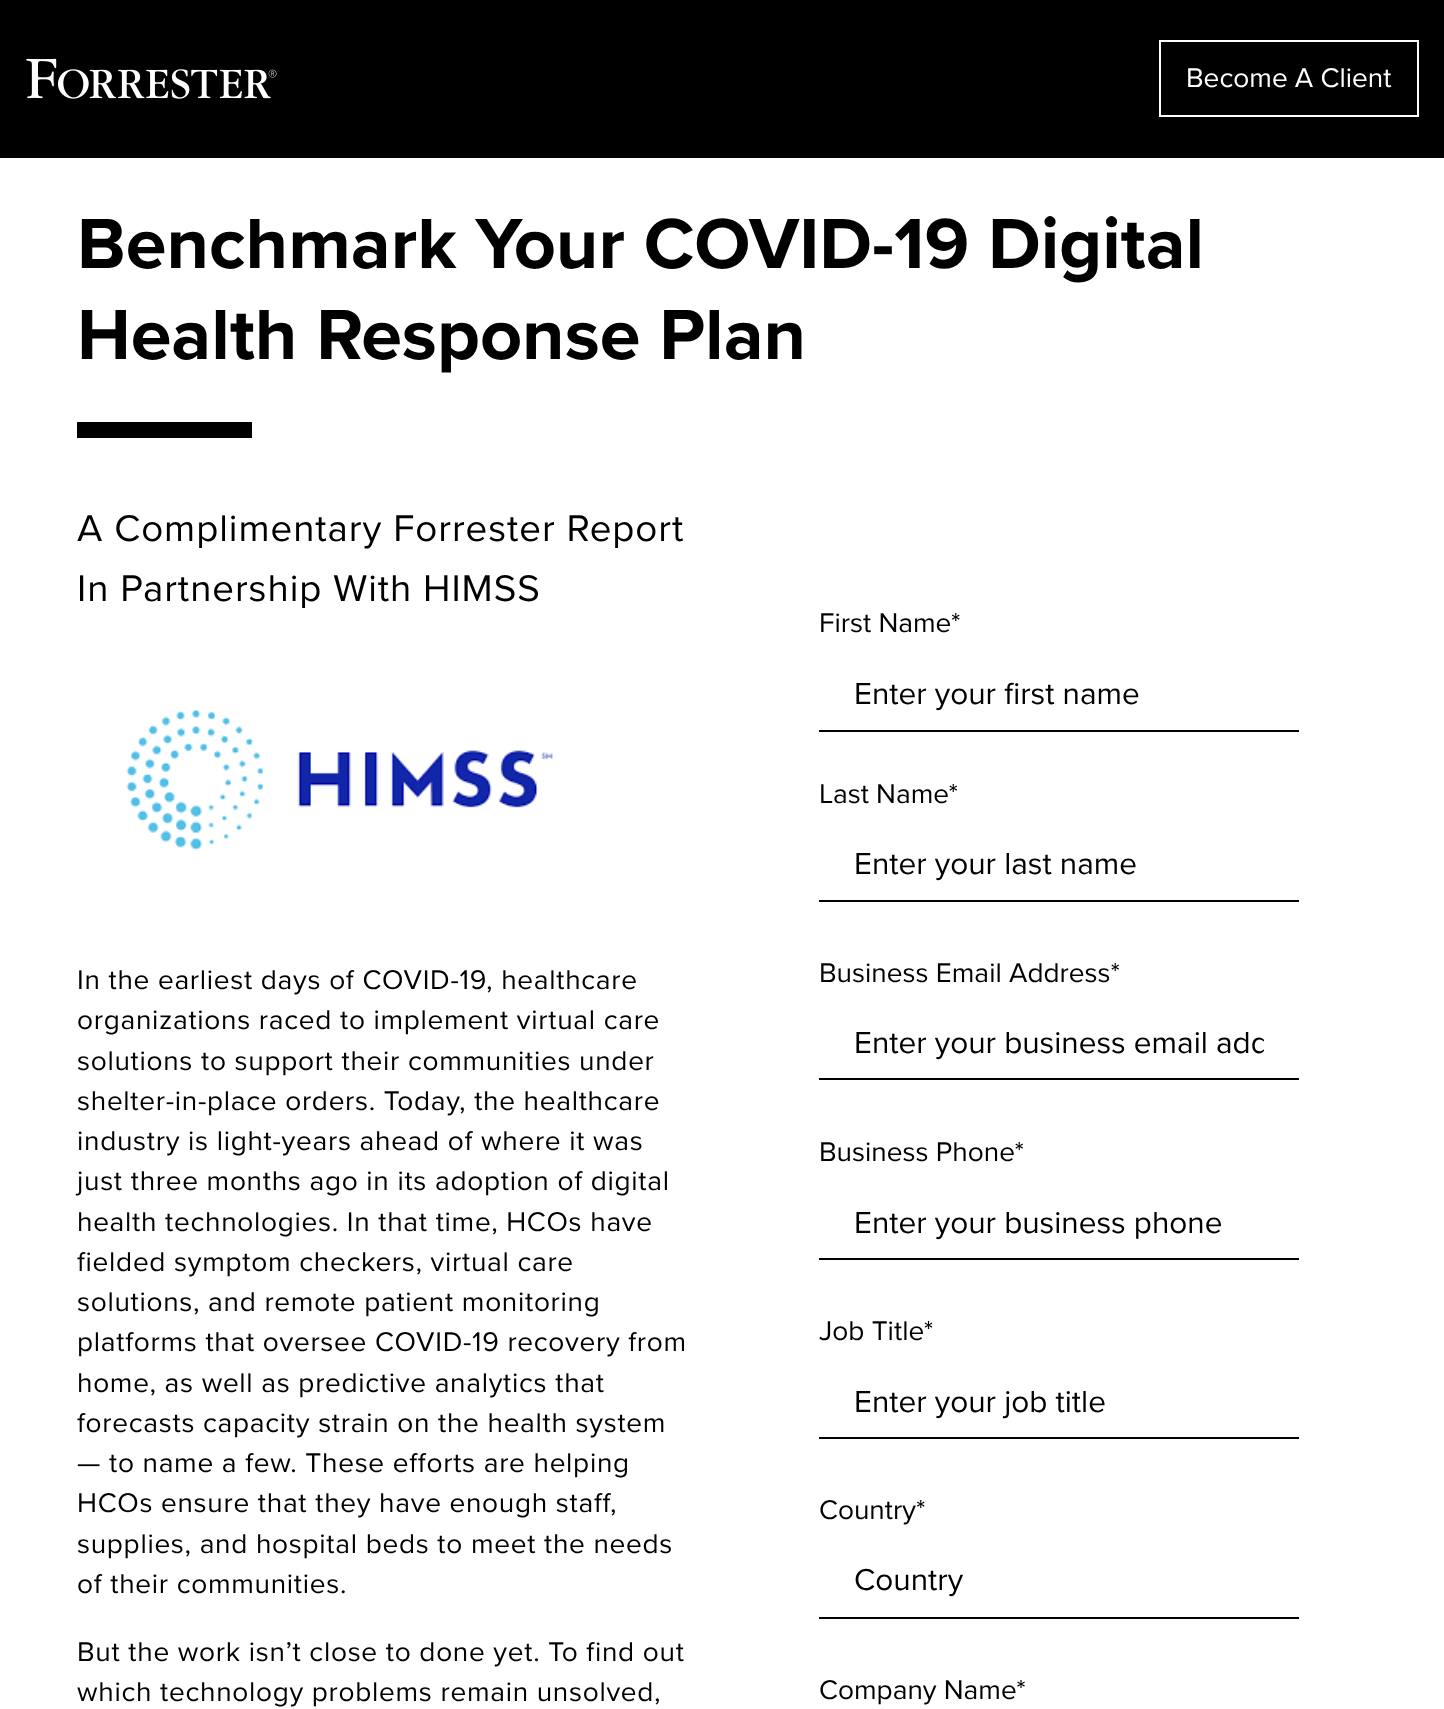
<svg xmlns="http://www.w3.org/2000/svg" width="1444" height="1709">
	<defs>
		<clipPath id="clip1"><rect x="854" y="1020" width="410" height="46" /></clipPath>
	</defs>
	<rect width="100%" height="100%" fill="#FFFFFF" />
	<rect x="0" y="0" width="1444" height="158" fill="#000000" />
	<image x="26" y="58" width="251" height="41" href="assets/img1.png" />
	<rect x="1160" y="41" width="258" height="75" fill="none" stroke="#FFFFFF" stroke-width="2" />
	<text x="1186" y="87" font-family="Proxima Nova" font-size="28" fill="#FFFFFF">Become A Client</text>
	<g font-family="Proxima Nova" font-size="73.5" font-weight="700" fill="#000000">
		<text x="77" y="268">Benchmark Your COVID-19 Digital</text>
		<text x="77" y="359">Health Response Plan</text>
	</g>
	<rect x="77" y="422" width="175" height="16" fill="#000000" />
	<g font-family="Proxima Nova" font-size="38.5" letter-spacing="0.95" fill="#000000">
		<text x="77" y="541">A Complimentary Forrester Report</text>
		<text x="77" y="601">In Partnership With HIMSS</text>
	</g>
	<image x="126" y="709" width="427" height="142" href="assets/img2.png" />
	<g font-family="Proxima Nova" font-size="28" letter-spacing="0.7" fill="#000000">
		<text x="77" y="989">In the earliest days of COVID-19, healthcare</text>
		<text x="77" y="1029">organizations raced to implement virtual care</text>
		<text x="77" y="1070">solutions to support their communities under</text>
		<text x="77" y="1110">shelter-in-place orders. Today, the healthcare</text>
		<text x="77" y="1150">industry is light-years ahead of where it was</text>
		<text x="77" y="1190">just three months ago in its adoption of digital</text>
		<text x="77" y="1231">health technologies. In that time, HCOs have</text>
		<text x="77" y="1271">fielded symptom checkers, virtual care</text>
		<text x="77" y="1311">solutions, and remote patient monitoring</text>
		<text x="77" y="1351">platforms that oversee COVID-19 recovery from</text>
		<text x="77" y="1392">home, as well as predictive analytics that</text>
		<text x="77" y="1432">forecasts capacity strain on the health system</text>
		<text x="77" y="1472">— to name a few. These efforts are helping</text>
		<text x="77" y="1512">HCOs ensure that they have enough staff,</text>
		<text x="77" y="1553">supplies, and hospital beds to meet the needs</text>
		<text x="77" y="1593">of their communities.</text>
		<text x="77" y="1661">But the work isn’t close to done yet. To find out</text>
		<text x="77" y="1701">which technology problems remain unsolved,</text>
	</g>
	<text x="819" y="632" font-family="Proxima Nova" font-size="28" fill="#000000">First Name*</text>
	<rect x="819" y="730" width="480" height="2" fill="#000000" />
	<text x="854" y="704" font-family="Proxima Nova" font-size="31.5" fill="#000000">Enter your first name</text>
	<text x="819" y="803" font-family="Proxima Nova" font-size="28" fill="#000000">Last Name*</text>
	<rect x="819" y="900" width="480" height="2" fill="#000000" />
	<text x="854" y="874" font-family="Proxima Nova" font-size="31.5" fill="#000000">Enter your last name</text>
	<text x="819" y="982" font-family="Proxima Nova" font-size="28" fill="#000000">Business Email Address*</text>
	<rect x="819" y="1078" width="480" height="2" fill="#000000" />
	<g clip-path="url(#clip1)">
		<text x="854" y="1053" font-family="Proxima Nova" font-size="31.5" fill="#000000">Enter your business email add</text>
	</g>
	<text x="819" y="1161" font-family="Proxima Nova" font-size="28" fill="#000000">Business Phone*</text>
	<rect x="819" y="1258" width="480" height="2" fill="#000000" />
	<text x="854" y="1233" font-family="Proxima Nova" font-size="31.5" fill="#000000">Enter your business phone</text>
	<text x="819" y="1340" font-family="Proxima Nova" font-size="28" fill="#000000">Job Title*</text>
	<rect x="819" y="1437" width="480" height="2" fill="#000000" />
	<text x="854" y="1412" font-family="Proxima Nova" font-size="31.5" fill="#000000">Enter your job title</text>
	<text x="819" y="1519" font-family="Proxima Nova" font-size="28" fill="#000000">Country*</text>
	<rect x="819" y="1617" width="480" height="2" fill="#000000" />
	<text x="854" y="1590" font-family="Proxima Nova" font-size="31.5" fill="#000000">Country</text>
	<text x="819" y="1699" font-family="Proxima Nova" font-size="28" fill="#000000">Company Name*</text>
</svg>
